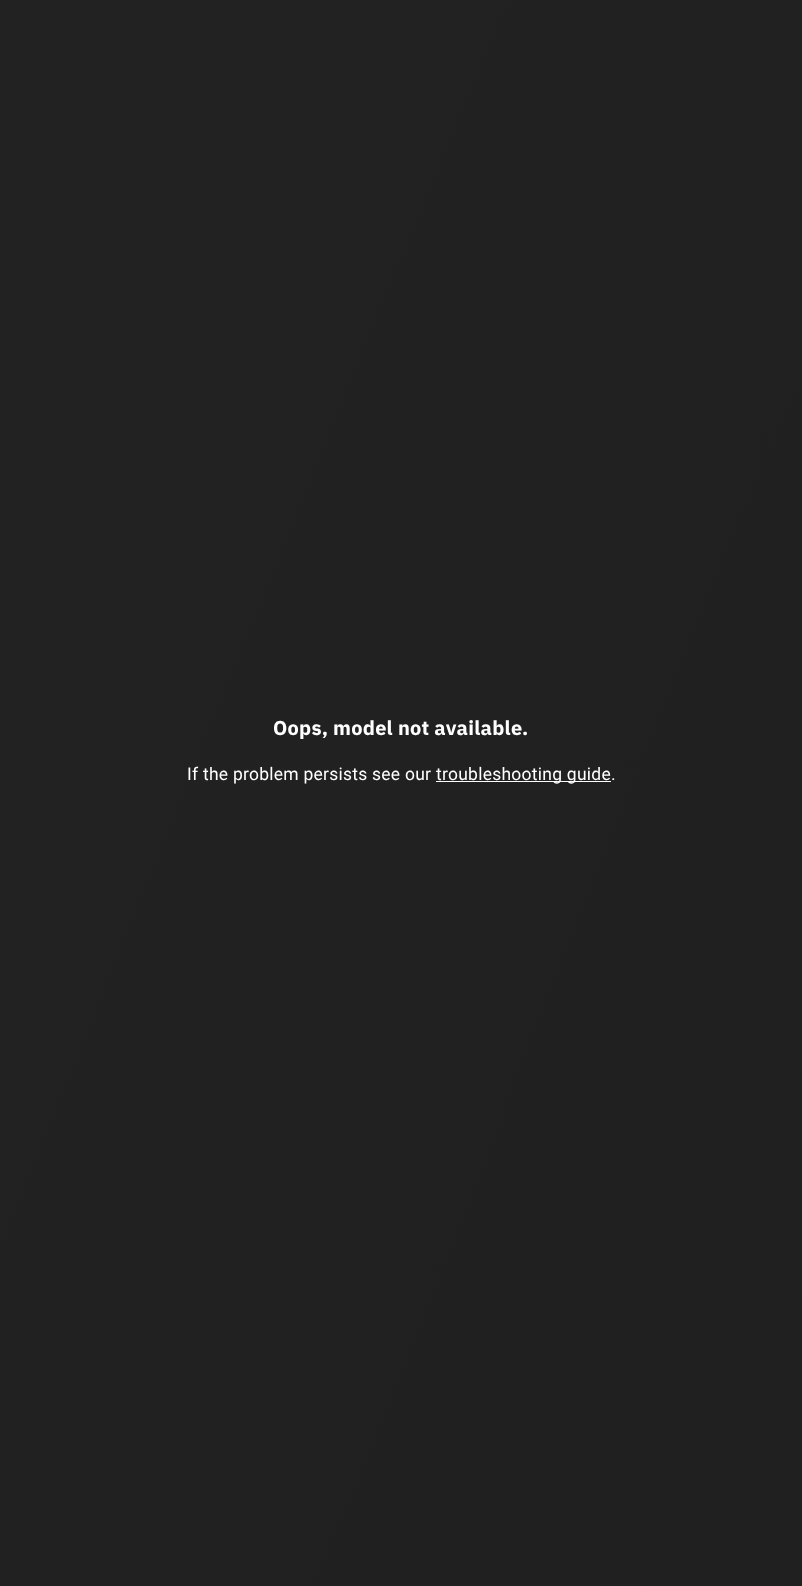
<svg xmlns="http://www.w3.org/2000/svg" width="802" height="1586">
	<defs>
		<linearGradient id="g1" gradientUnits="userSpaceOnUse" x1="-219" y1="542" x2="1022" y2="1044"><stop offset="0" stop-color="#222222" /><stop offset="1" stop-color="#202020" /></linearGradient>
	</defs>
	<rect width="100%" height="100%" fill="#FFFFFF" />
	<rect x="0" y="0" width="802" height="1586" fill="url(#g1)" />
	<text x="273" y="735" font-family="IBM Plex Sans" font-size="20" font-weight="700" letter-spacing="0.25" fill="#FFFFFF">Oops, model not available.</text>
	<text x="187" y="780" font-family="Roboto" font-size="17.5" letter-spacing="0.25" fill="#FFFFFF">If the problem persists see our</text>
	<rect x="436" y="781" width="175" height="1" fill="#FFFFFF" />
	<text x="436" y="780" font-family="Roboto" font-size="17.5" letter-spacing="0.25" fill="#FFFFFF">troubleshooting guide.</text>
</svg>
